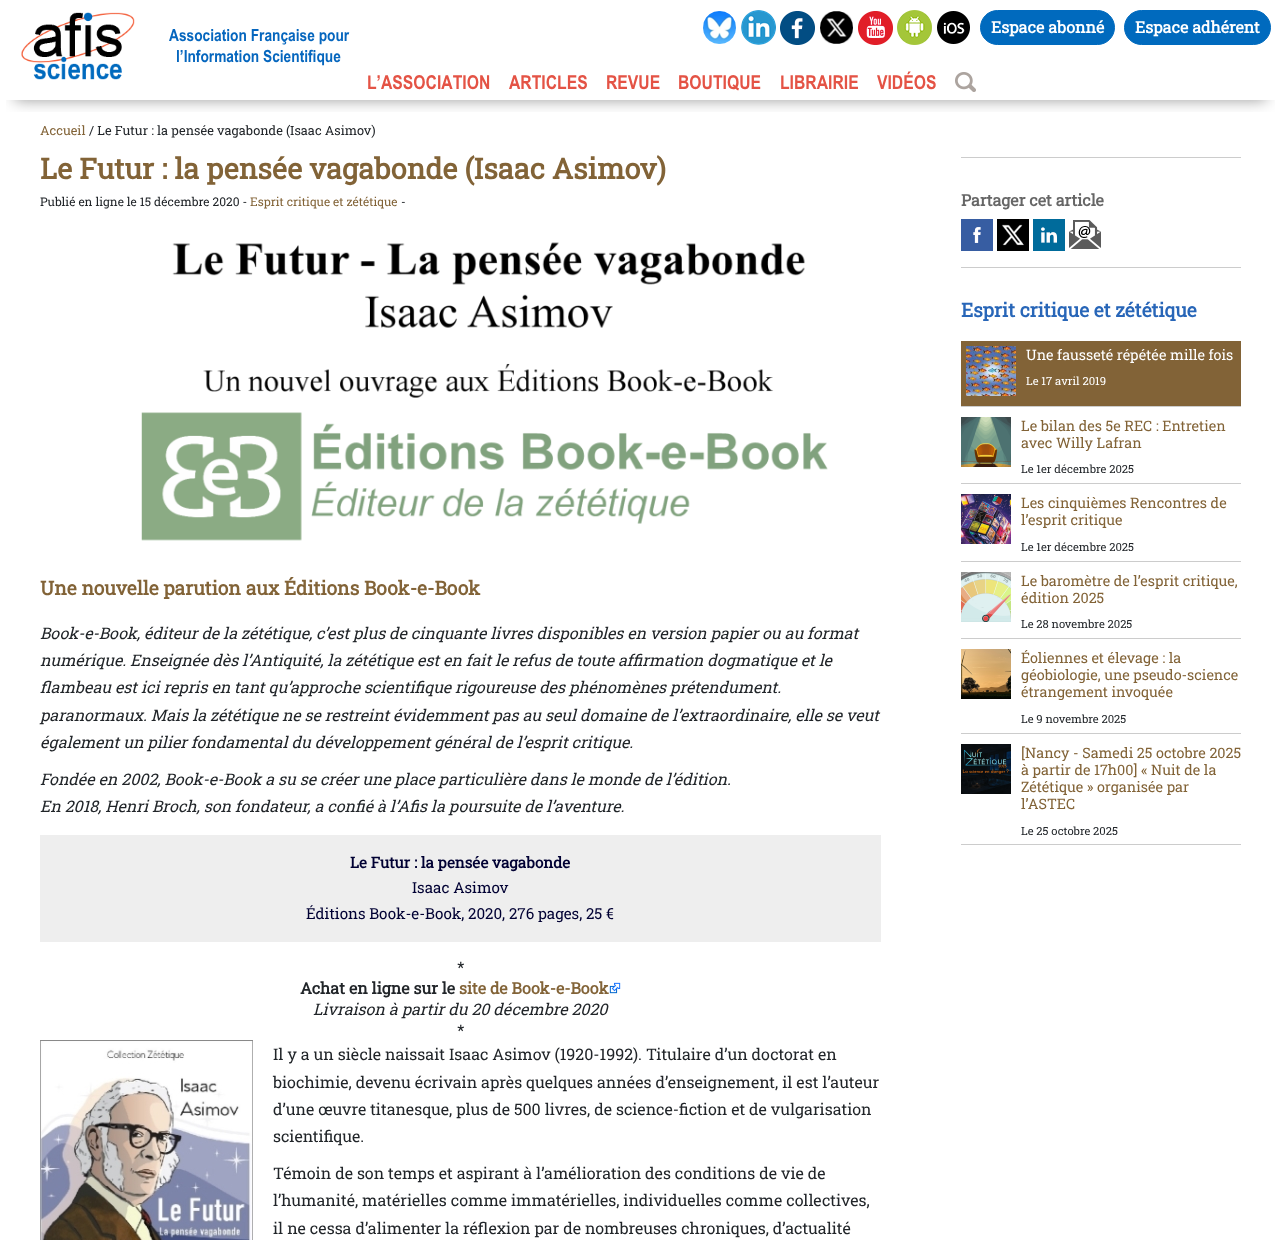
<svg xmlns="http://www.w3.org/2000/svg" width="1281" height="1240">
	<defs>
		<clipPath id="clip1"><rect x="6" y="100" width="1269" height="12" /></clipPath>
	</defs>
	<rect width="100%" height="100%" fill="#FFFFFF" />
	<g clip-path="url(#clip1)">
		<rect x="15" y="30" width="1251" height="70" fill="#000000" fill-opacity="0.4" filter="blur(7.5px)" />
	</g>
	<image x="21" y="12" width="114" height="68" href="assets/img1.png" />
	<g font-family="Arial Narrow" font-size="16.75" font-weight="700" fill="#0566BE">
		<text x="169" y="41">Association Française pour</text>
		<text x="176" y="62">l’Information Scientifique</text>
	</g>
	<image x="703" y="11" width="33" height="33" href="assets/img2.png" />
	<image x="741" y="10" width="35" height="35" href="assets/img3.png" />
	<image x="780" y="11" width="35" height="34" href="assets/img4.png" />
	<image x="820" y="11" width="33" height="33" href="assets/img5.png" />
	<image x="858" y="11" width="35" height="34" href="assets/img6.png" />
	<image x="897" y="10" width="35" height="35" href="assets/img7.png" />
	<image x="937" y="11" width="33" height="33" href="assets/img8.png" />
	<rect x="980.5" y="10.5" width="134" height="34" rx="17" fill="#006ABE" stroke="#006ABE" />
	<text x="991" y="33" font-family="Roboto Slab" font-size="16" font-weight="700" fill="#FFFFFF">Espace abonné</text>
	<rect x="1124.5" y="10.5" width="146" height="34" rx="17" fill="#006ABE" stroke="#006ABE" />
	<text x="1135" y="33" font-family="Roboto Slab" font-size="16" font-weight="700" fill="#FFFFFF">Espace adhérent</text>
	<g font-family="Arial Narrow" font-size="19.2" font-weight="700" fill="#E45345">
		<text x="367" y="89">L’ASSOCIATION</text>
		<text x="509" y="89">ARTICLES</text>
		<text x="606" y="89">REVUE</text>
		<text x="678" y="89">BOUTIQUE</text>
		<text x="780" y="89">LIBRAIRIE</text>
		<text x="877" y="89">VIDÉOS</text>
	</g>
	<image x="955" y="72" width="21" height="20" href="assets/img9.png" />
	<text x="40" y="135" font-family="Roboto Slab" font-size="12.8" fill="#826337">Accueil</text>
	<text x="89" y="135" font-family="Roboto Slab" font-size="12.8" fill="#212529">/ Le Futur : la pensée vagabonde (Isaac Asimov)</text>
	<text x="40" y="179" font-family="Roboto Slab" font-size="28.8" font-weight="700" fill="#826337">Le Futur : la pensée vagabonde (Isaac Asimov)</text>
	<text x="40" y="206" font-family="Roboto Slab" font-size="12" fill="#212529">Publié en ligne le 15 décembre 2020 -</text>
	<text x="250" y="206" font-family="Roboto Slab" font-size="12" fill="#826337">Esprit critique et zététique</text>
	<text x="401" y="206" font-family="Roboto Slab" font-size="12" fill="#212529">-</text>
	<image x="141" y="242" width="687" height="299" href="assets/img10.png" />
	<text x="40" y="595" font-family="Roboto Slab" font-size="19.2" font-weight="700" fill="#826337">Une nouvelle parution aux Éditions Book-e-Book</text>
	<g font-family="Roboto Slab" font-size="16" font-style="italic" fill="#212529">
		<text x="40" y="639">Book-e-Book, éditeur de la zététique, c’est plus de cinquante livres disponibles en version papier ou au format</text>
		<text x="40" y="666">numérique. Enseignée dès l’Antiquité, la zététique est en fait le refus de toute affirmation dogmatique et le</text>
		<text x="40" y="693">flambeau est ici repris en tant qu’approche scientifique rigoureuse des phénomènes prétendument.</text>
		<text x="40" y="721">paranormaux. Mais la zététique ne se restreint évidemment pas au seul domaine de l’extraordinaire, elle se veut</text>
		<text x="40" y="748">également un pilier fondamental du développement général de l’esprit critique.</text>
		<text x="40" y="785">Fondée en 2002, Book-e-Book a su se créer une place particulière dans le monde de l’édition.</text>
		<text x="40" y="812">En 2018, Henri Broch, son fondateur, a confié à l’Afis la poursuite de l’aventure.</text>
	</g>
	<rect x="40" y="835" width="841" height="107" fill="#EEEEEE" />
	<text x="350" y="868" font-family="Roboto Slab" font-size="15.2" font-weight="700" fill="#000033">Le Futur : la pensée vagabonde</text>
	<g font-family="Roboto Slab" font-size="15.2" fill="#000033">
		<text x="412" y="893">Isaac Asimov</text>
		<text x="306" y="919">Éditions Book-e-Book, 2020, 276 pages, 25 €</text>
	</g>
	<text x="457" y="973" font-family="Roboto Slab" font-size="16" fill="#212529">*</text>
	<text x="300" y="994" font-family="Roboto Slab" font-size="16" font-weight="700" fill="#212529">Achat en ligne sur le</text>
	<text x="459" y="994" font-family="Roboto Slab" font-size="16" font-weight="700" fill="#826337">site de Book-e-Book</text>
	<image x="609" y="982" width="12" height="12" href="assets/img11.png" />
	<text x="313" y="1015" font-family="Roboto Slab" font-size="16" font-style="italic" fill="#212529">Livraison à partir du 20 décembre 2020</text>
	<text x="457" y="1036" font-family="Roboto Slab" font-size="16" fill="#212529">*</text>
	<image x="40" y="1040" width="213" height="200" href="assets/img12.png" />
	<g font-family="Roboto Slab" font-size="16" fill="#212529">
		<text x="273" y="1060">Il y a un siècle naissait Isaac Asimov (1920-1992). Titulaire d’un doctorat en</text>
		<text x="273" y="1088">biochimie, devenu écrivain après quelques années d’enseignement, il est l’auteur</text>
		<text x="273" y="1115">d’une œuvre titanesque, plus de 500 livres, de science-fiction et de vulgarisation</text>
		<text x="273" y="1142">scientifique.</text>
		<text x="273" y="1179">Témoin de son temps et aspirant à l’amélioration des conditions de vie de</text>
		<text x="273" y="1206">l’humanité, matérielles comme immatérielles, individuelles comme collectives,</text>
		<text x="273" y="1234">il ne cessa d’alimenter la réflexion par de nombreuses chroniques, d’actualité</text>
	</g>
	<rect x="961" y="157" width="280" height="1" fill="#CCCCCC" />
	<text x="961" y="206" font-family="Roboto Slab" font-size="16" font-weight="700" fill="#666666">Partager cet article</text>
	<image x="961" y="219" width="32" height="32" href="assets/img13.png" />
	<image x="997" y="219" width="32" height="32" href="assets/img14.png" />
	<image x="1033" y="219" width="32" height="32" href="assets/img15.png" />
	<image x="1069" y="220" width="32" height="29" href="assets/img16.png" />
	<rect x="961" y="267" width="280" height="1" fill="#CCCCCC" />
	<text x="961" y="317" font-family="Roboto Slab" font-size="19.2" font-weight="700" fill="#2866B8">Esprit critique et zététique</text>
	<rect x="961" y="341" width="280" height="65" fill="#826337" />
	<rect x="961" y="406" width="280" height="1" fill="#CCCCCC" />
	<image x="966" y="346" width="50" height="50" href="assets/img17.png" />
	<text x="1026" y="360" font-family="Roboto Slab" font-size="14.4" fill="#FFFFFF">Une fausseté répétée mille fois</text>
	<text x="1026" y="385" font-family="Roboto Slab" font-size="11.25" fill="#FFFFFF">Le 17 avril 2019</text>
	<rect x="961" y="483" width="280" height="1" fill="#CCCCCC" />
	<image x="961" y="417" width="50" height="50" href="assets/img18.png" />
	<g font-family="Roboto Slab" font-size="14.4" fill="#826337">
		<text x="1021" y="431">Le bilan des 5e REC : Entretien</text>
		<text x="1021" y="448">avec Willy Lafran</text>
	</g>
	<text x="1021" y="473" font-family="Roboto Slab" font-size="11.25" fill="#212529">Le 1er décembre 2025</text>
	<rect x="961" y="561" width="280" height="1" fill="#CCCCCC" />
	<image x="961" y="494" width="50" height="50" href="assets/img19.png" />
	<g font-family="Roboto Slab" font-size="14.4" fill="#826337">
		<text x="1021" y="508">Les cinquièmes Rencontres de</text>
		<text x="1021" y="525">l’esprit critique</text>
	</g>
	<text x="1021" y="551" font-family="Roboto Slab" font-size="11.25" fill="#212529">Le 1er décembre 2025</text>
	<rect x="961" y="638" width="280" height="1" fill="#CCCCCC" />
	<image x="961" y="572" width="50" height="50" href="assets/img20.png" />
	<g font-family="Roboto Slab" font-size="14.4" fill="#826337">
		<text x="1021" y="586">Le baromètre de l’esprit critique,</text>
		<text x="1021" y="603">édition 2025</text>
	</g>
	<text x="1021" y="628" font-family="Roboto Slab" font-size="11.25" fill="#212529">Le 28 novembre 2025</text>
	<rect x="961" y="733" width="280" height="1" fill="#CCCCCC" />
	<image x="961" y="649" width="50" height="50" href="assets/img21.png" />
	<g font-family="Roboto Slab" font-size="14.4" fill="#826337">
		<text x="1021" y="663">Éoliennes et élevage : la</text>
		<text x="1021" y="680">géobiologie, une pseudo-science</text>
		<text x="1021" y="697">étrangement invoquée</text>
	</g>
	<text x="1021" y="723" font-family="Roboto Slab" font-size="11.25" fill="#212529">Le 9 novembre 2025</text>
	<rect x="961" y="844" width="280" height="1" fill="#CCCCCC" />
	<image x="961" y="744" width="50" height="50" href="assets/img22.png" />
	<g font-family="Roboto Slab" font-size="14.4" fill="#826337">
		<text x="1021" y="758">[Nancy - Samedi 25 octobre 2025</text>
		<text x="1021" y="775">à partir de 17h00] « Nuit de la</text>
		<text x="1021" y="792">Zététique » organisée par</text>
		<text x="1021" y="809">l’ASTEC</text>
	</g>
	<text x="1021" y="835" font-family="Roboto Slab" font-size="11.25" fill="#212529">Le 25 octobre 2025</text>
</svg>
